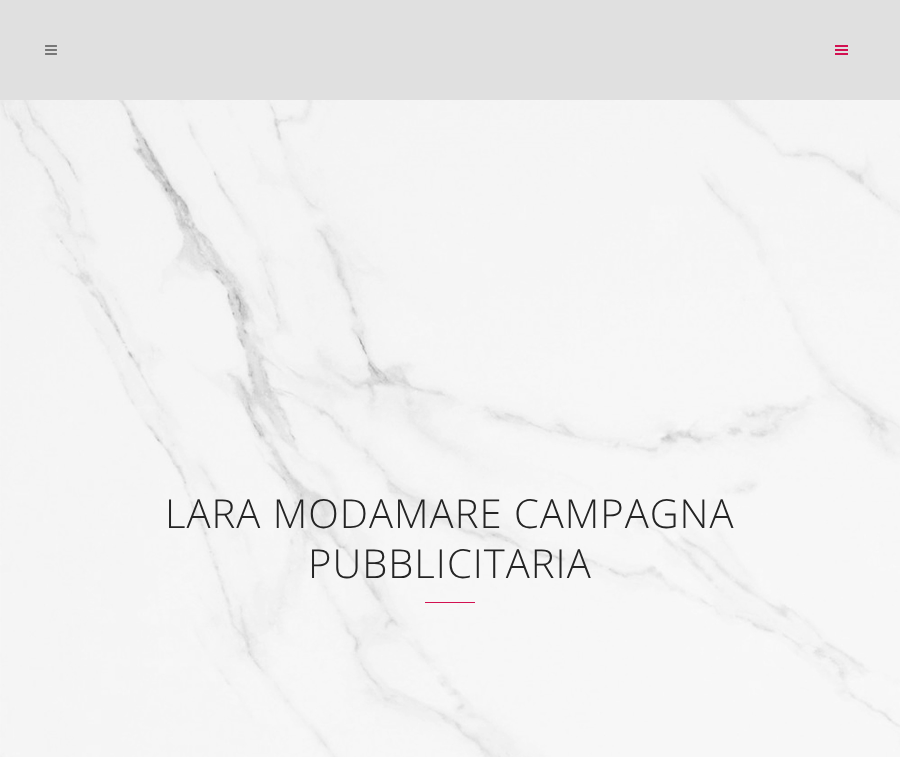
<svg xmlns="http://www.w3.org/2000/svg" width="900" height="757">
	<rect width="100%" height="100%" fill="#FFFFFF" />
	<rect x="0" y="0" width="900" height="100" fill="#E0E0E0" />
	<image x="45" y="45" width="12" height="10" href="assets/img1.png" />
	<rect x="835" y="49" width="13" height="2" fill="#D21151" />
	<rect x="835" y="45" width="13" height="2" fill="#D21151" />
	<rect x="835" y="53" width="13" height="2" fill="#D21151" />
	<image x="0" y="100" width="900" height="657" href="assets/img2.png" />
	<g font-family="Open Sans" font-size="40" font-weight="300" letter-spacing="1" fill="#242424">
		<text x="165" y="528">LARA MODAMARE CAMPAGNA</text>
		<text x="308" y="578">PUBBLICITARIA</text>
	</g>
	<rect x="425" y="602" width="50" height="1" fill="#D21151" />
</svg>
